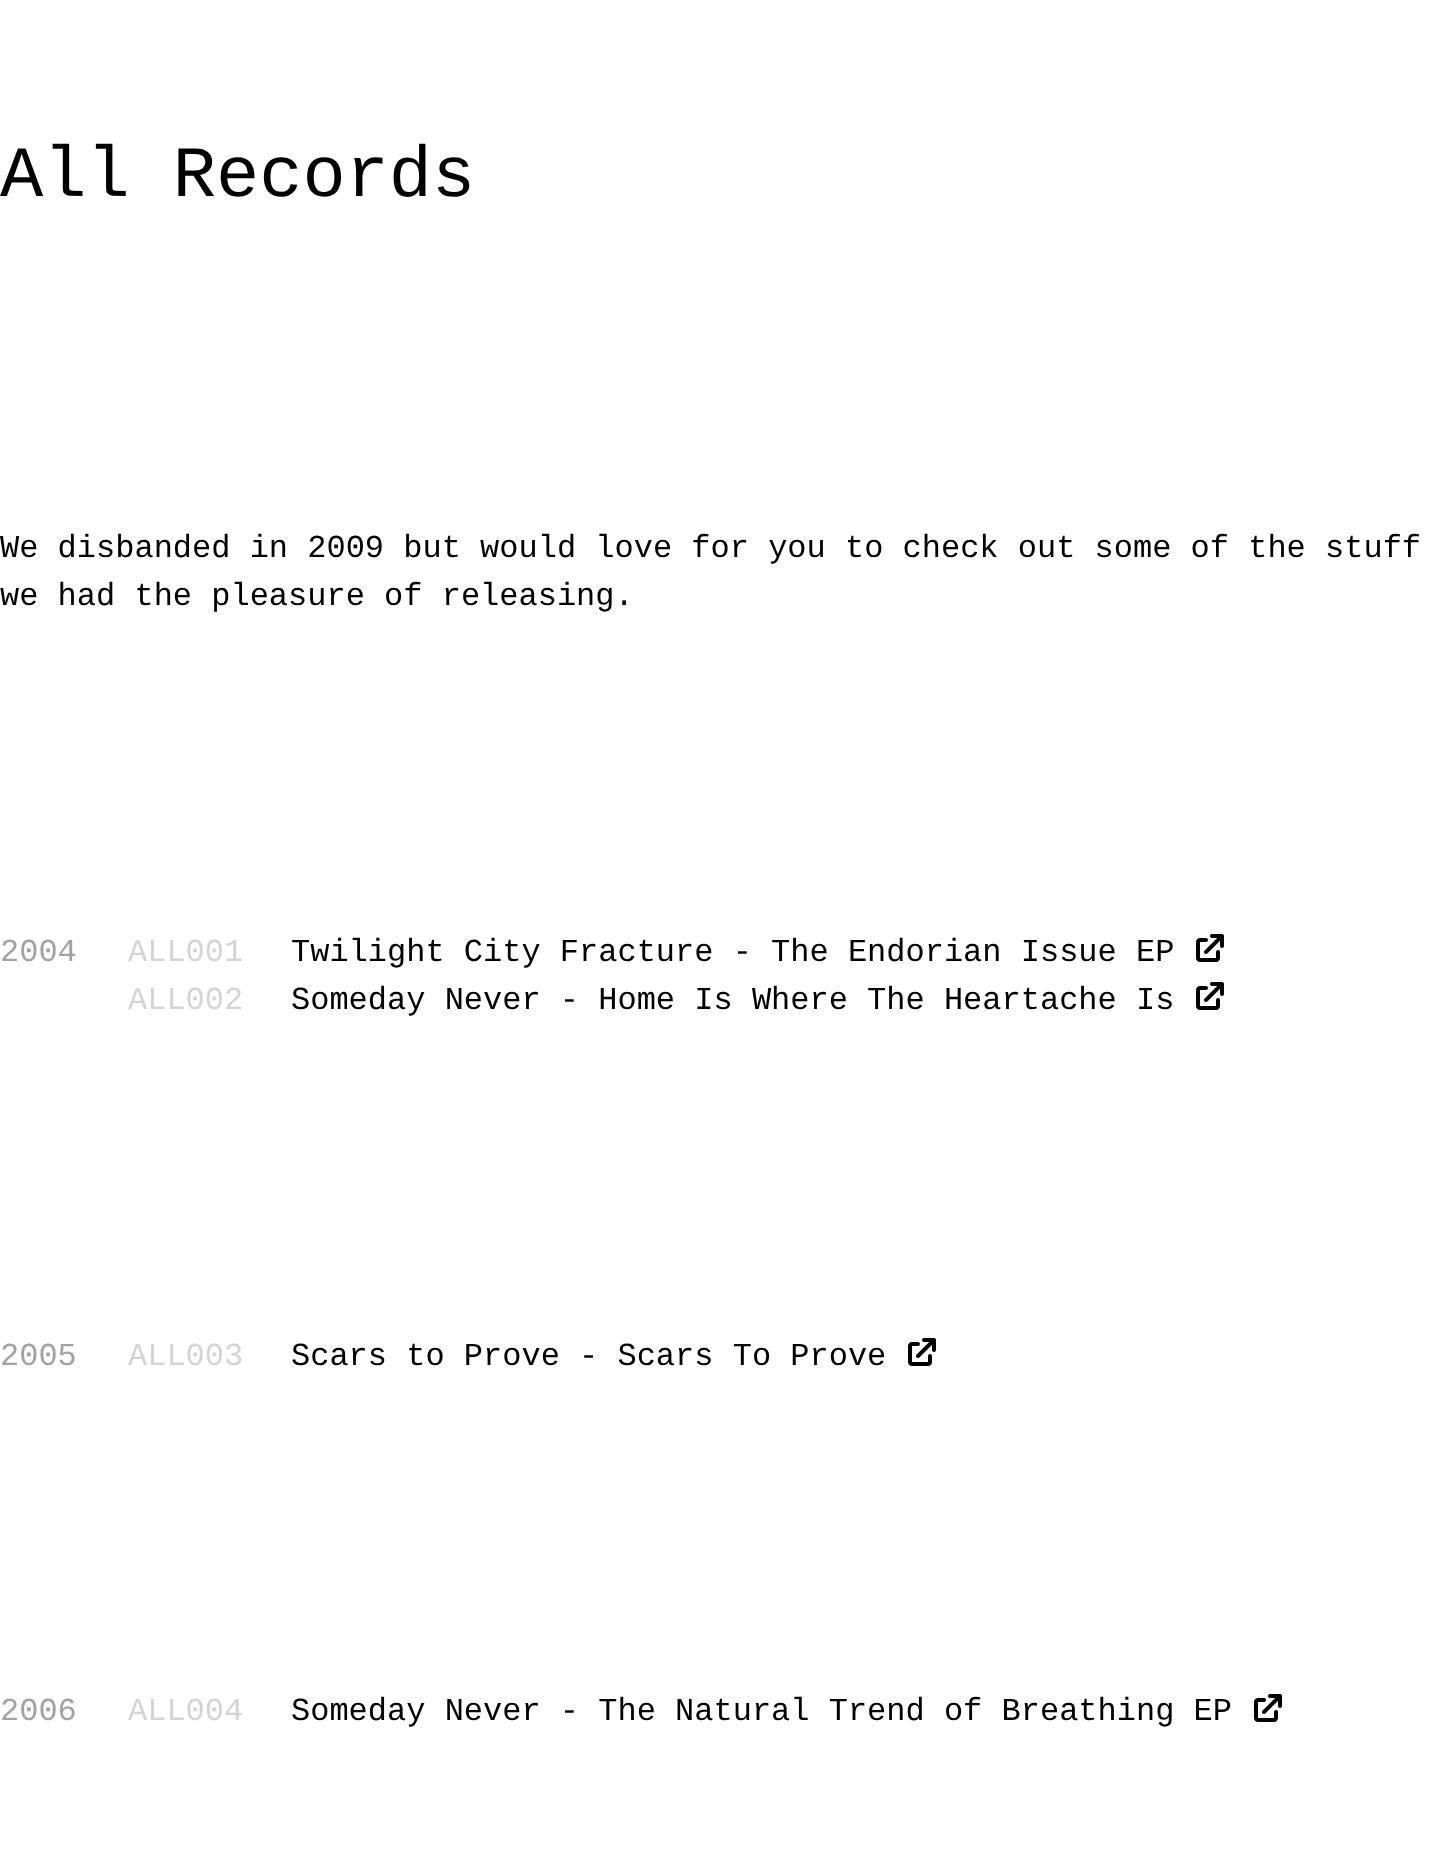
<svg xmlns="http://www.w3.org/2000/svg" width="1433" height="1874">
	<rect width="100%" height="100%" fill="#FFFFFF" />
	<text x="0" y="196" font-family="Liberation Mono" font-size="72" fill="#000000">All Records</text>
	<g font-family="Liberation Mono" font-size="32" fill="#000000">
		<text x="0" y="557">We disbanded in 2009 but would love for you to check out some of the stuff</text>
		<text x="0" y="605">we had the pleasure of releasing.</text>
	</g>
	<text x="0" y="961" font-family="Liberation Mono" font-size="32" fill="#A1A1AA">2004</text>
	<text x="128" y="961" font-family="Liberation Mono" font-size="32" fill="#D4D4D8">ALL001</text>
	<text x="291" y="961" font-family="Liberation Mono" font-size="32" fill="#000000">Twilight City Fracture - The Endorian Issue EP</text>
	<image x="1196" y="934" width="28" height="28" href="assets/img1.png" />
	<text x="128" y="1009" font-family="Liberation Mono" font-size="32" fill="#D4D4D8">ALL002</text>
	<text x="291" y="1009" font-family="Liberation Mono" font-size="32" fill="#000000">Someday Never - Home Is Where The Heartache Is</text>
	<image x="1196" y="982" width="28" height="28" href="assets/img1.png" />
	<text x="0" y="1365" font-family="Liberation Mono" font-size="32" fill="#A1A1AA">2005</text>
	<text x="128" y="1365" font-family="Liberation Mono" font-size="32" fill="#D4D4D8">ALL003</text>
	<text x="291" y="1365" font-family="Liberation Mono" font-size="32" fill="#000000">Scars to Prove - Scars To Prove</text>
	<image x="908" y="1338" width="28" height="28" href="assets/img1.png" />
	<text x="0" y="1720" font-family="Liberation Mono" font-size="32" fill="#A1A1AA">2006</text>
	<text x="128" y="1720" font-family="Liberation Mono" font-size="32" fill="#D4D4D8">ALL004</text>
	<text x="291" y="1720" font-family="Liberation Mono" font-size="32" fill="#000000">Someday Never - The Natural Trend of Breathing EP</text>
	<image x="1254" y="1694" width="28" height="28" href="assets/img1.png" />
</svg>
